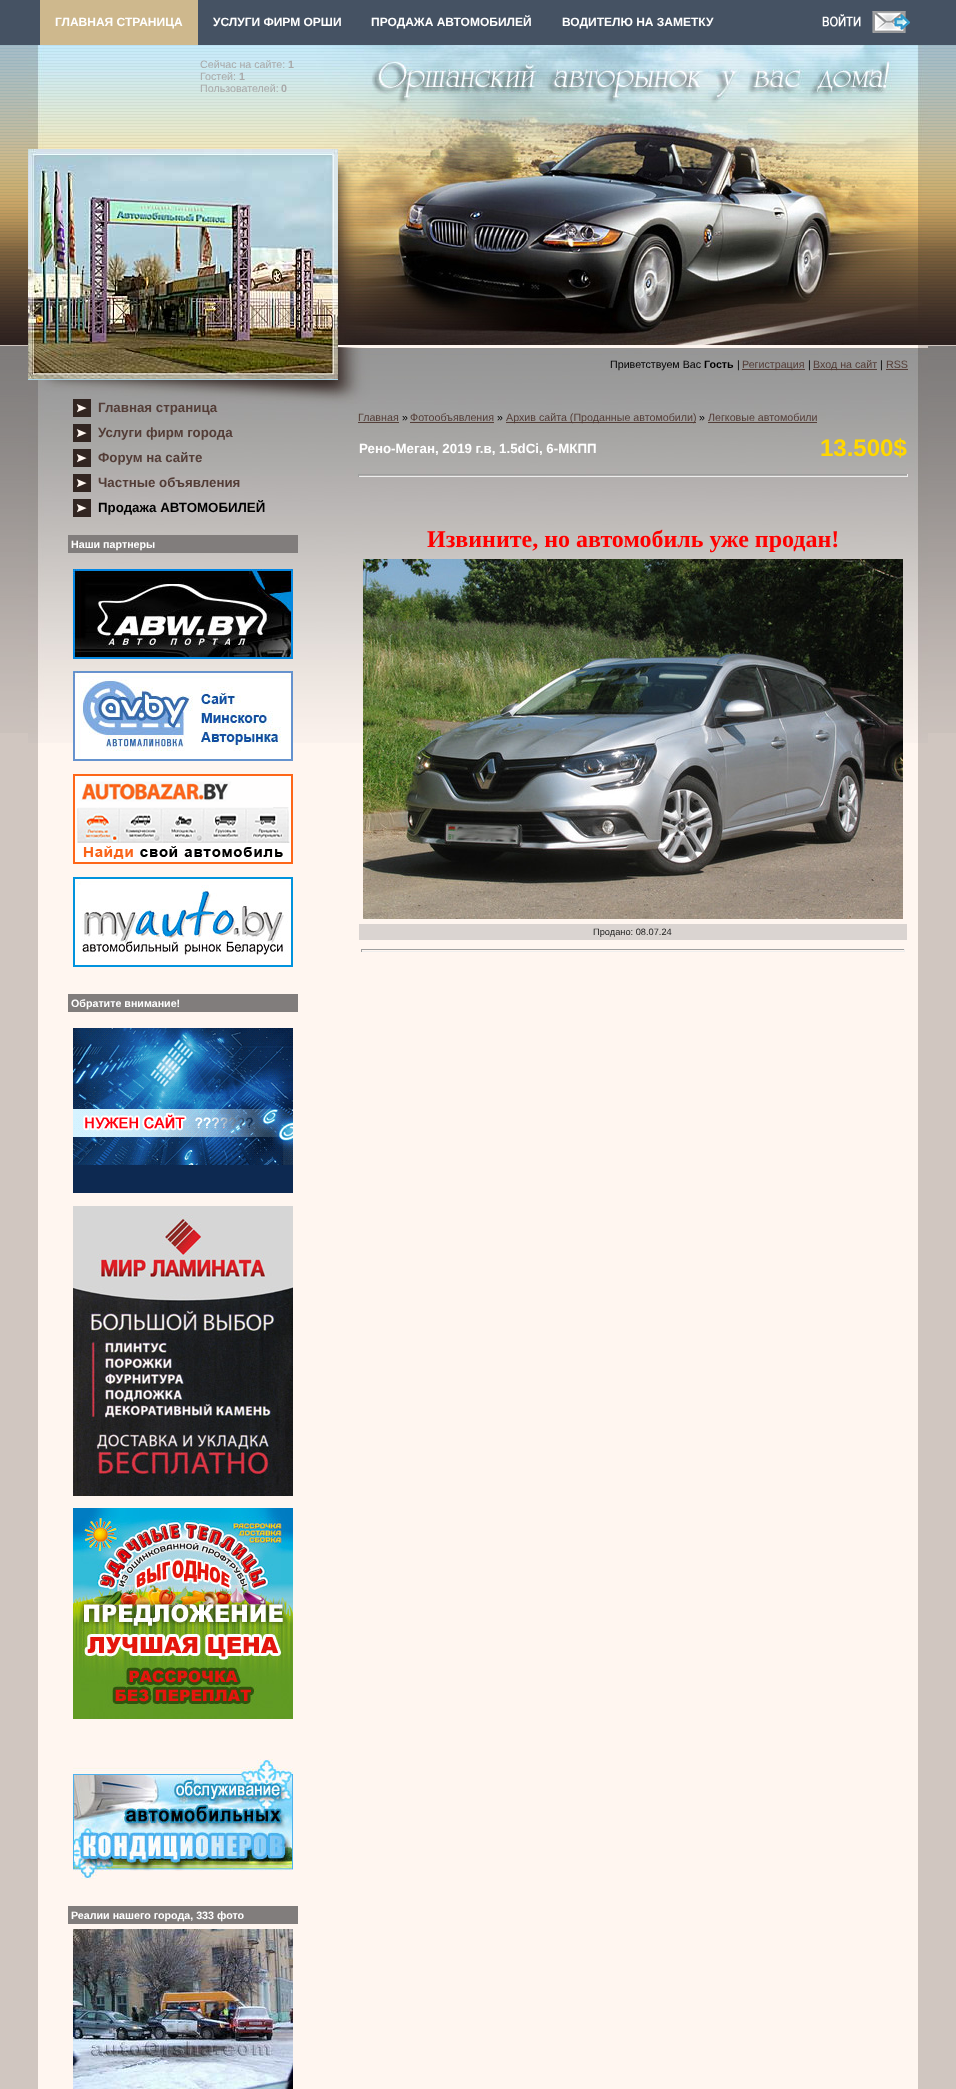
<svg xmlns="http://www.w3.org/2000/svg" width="956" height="2089">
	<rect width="100%" height="100%" fill="#D0C6C0" />
	<rect x="0" y="0" width="956" height="45" fill="#455263" />
	<rect x="40" y="0" width="158" height="45" fill="#CEB88D" />
	<g font-family="Liberation Sans" font-size="12" font-weight="700" fill="#FFFFFF">
		<text x="55" y="26">ГЛАВНАЯ СТРАНИЦА</text>
		<text x="213" y="26">УСЛУГИ ФИРМ ОРШИ</text>
		<text x="371" y="26">ПРОДАЖА АВТОМОБИЛЕЙ</text>
		<text x="562" y="26">ВОДИТЕЛЮ НА ЗАМЕТКУ</text>
	</g>
	<image x="822" y="14" width="39" height="13" href="assets/img1.png" />
	<image x="872" y="11" width="38" height="22" href="assets/img2.png" />
	<image x="0" y="45" width="956" height="688" href="assets/img3.png" />
	<image x="28" y="345" width="900" height="1744" href="assets/img4.png" />
	<image x="28" y="45" width="900" height="104" href="assets/img5.png" />
	<text x="200" y="68" font-family="Liberation Sans" font-size="10.7" fill="#A9A9A9">Сейчас на сайте:</text>
	<text x="288" y="68" font-family="Liberation Sans" font-size="10.7" font-weight="700" fill="#A9A9A9">1</text>
	<text x="200" y="80" font-family="Liberation Sans" font-size="10.7" fill="#A9A9A9">Гостей:</text>
	<text x="239" y="80" font-family="Liberation Sans" font-size="10.7" font-weight="700" fill="#A9A9A9">1</text>
	<text x="200" y="92" font-family="Liberation Sans" font-size="10.7" fill="#A9A9A9">Пользователей:</text>
	<text x="281" y="92" font-family="Liberation Sans" font-size="10.7" font-weight="700" fill="#A9A9A9">0</text>
	<rect x="28" y="379" width="310" height="1" fill="#AAD5E8" />
	<image x="28" y="149" width="310" height="230" href="assets/img6.png" />
	<image x="338" y="149" width="590" height="196" href="assets/img7.png" />
	<image x="338" y="347" width="590" height="33" href="assets/img8.png" />
	<text x="610" y="368" font-family="Liberation Sans" font-size="10.7" fill="#000000">Приветствуем Вас</text>
	<text x="704" y="368" font-family="Liberation Sans" font-size="10.7" font-weight="700" fill="#000000">Гость</text>
	<text x="737" y="368" font-family="Liberation Sans" font-size="10.7" fill="#000000">|</text>
	<rect x="742" y="369" width="63" height="1" fill="#533D37" />
	<text x="742" y="368" font-family="Liberation Sans" font-size="10.7" fill="#533D37">Регистрация</text>
	<text x="808" y="368" font-family="Liberation Sans" font-size="10.7" fill="#000000">|</text>
	<rect x="813" y="369" width="64" height="1" fill="#533D37" />
	<text x="813" y="368" font-family="Liberation Sans" font-size="10.7" fill="#533D37">Вход на сайт</text>
	<text x="880" y="368" font-family="Liberation Sans" font-size="10.7" fill="#000000">|</text>
	<text x="886" y="368" font-family="Liberation Sans" font-size="10.7" fill="#533D37">RSS</text>
	<rect x="886" y="369" width="22" height="1" fill="#533D37" />
	<image x="28" y="380" width="310" height="363" href="assets/img9.png" />
	<image x="73" y="399" width="18" height="18" href="assets/img10.png" />
	<text x="98" y="412" font-family="Liberation Sans" font-size="13.3" font-weight="700" fill="#533D37">Главная страница</text>
	<image x="73" y="424" width="18" height="18" href="assets/img10.png" />
	<text x="98" y="437" font-family="Liberation Sans" font-size="13.3" font-weight="700" fill="#533D37">Услуги фирм города</text>
	<image x="73" y="449" width="18" height="18" href="assets/img10.png" />
	<text x="98" y="462" font-family="Liberation Sans" font-size="13.3" font-weight="700" fill="#533D37">Форум на сайте</text>
	<image x="73" y="474" width="18" height="18" href="assets/img10.png" />
	<text x="98" y="487" font-family="Liberation Sans" font-size="13.3" font-weight="700" fill="#533D37">Частные объявления</text>
	<image x="73" y="499" width="18" height="18" href="assets/img10.png" />
	<text x="98" y="512" font-family="Liberation Sans" font-size="13.3" font-weight="700" fill="#000000">Продажа АВТОМОБИЛЕЙ</text>
	<rect x="68" y="535" width="230" height="18" fill="#817D7C" />
	<text x="71" y="548" font-family="Liberation Sans" font-size="10.7" font-weight="700" fill="#FFFFFF">Наши партнеры</text>
	<image x="73" y="569" width="220" height="90" href="assets/img11.png" />
	<image x="73" y="671" width="220" height="90" href="assets/img12.png" />
	<image x="73" y="774" width="220" height="90" href="assets/img13.png" />
	<image x="73" y="877" width="220" height="90" href="assets/img14.png" />
	<rect x="68" y="994" width="230" height="18" fill="#817D7C" />
	<text x="71" y="1007" font-family="Liberation Sans" font-size="10.7" font-weight="700" fill="#FFFFFF">Обратите внимание!</text>
	<image x="73" y="1028" width="220" height="165" href="assets/img15.png" />
	<image x="73" y="1206" width="220" height="290" href="assets/img16.png" />
	<image x="73" y="1508" width="220" height="211" href="assets/img17.png" />
	<image x="73" y="1759" width="220" height="120" href="assets/img18.png" />
	<rect x="68" y="1906" width="230" height="18" fill="#817D7C" />
	<text x="71" y="1919" font-family="Liberation Sans" font-size="10.7" font-weight="700" fill="#FFFFFF">Реалии нашего города, 333 фото</text>
	<image x="73" y="1929" width="220" height="160" href="assets/img19.png" />
	<image x="338" y="380" width="590" height="363" href="assets/img20.png" />
	<text x="358" y="421" font-family="Liberation Sans" font-size="10.7" fill="#533D37">Главная</text>
	<rect x="358" y="422" width="41" height="1" fill="#533D37" />
	<text x="402" y="421" font-family="Liberation Sans" font-size="10.7" fill="#000000">»</text>
	<text x="410" y="421" font-family="Liberation Sans" font-size="10.7" fill="#533D37">Фотообъявления</text>
	<rect x="410" y="422" width="84" height="1" fill="#533D37" />
	<text x="497" y="421" font-family="Liberation Sans" font-size="10.7" fill="#000000">»</text>
	<rect x="506" y="422" width="190" height="1" fill="#533D37" />
	<text x="506" y="421" font-family="Liberation Sans" font-size="10.7" fill="#533D37">Архив сайта (Проданные автомобили)</text>
	<text x="699" y="421" font-family="Liberation Sans" font-size="10.7" fill="#000000">»</text>
	<text x="708" y="421" font-family="Liberation Sans" font-size="10.7" fill="#533D37">Легковые автомобили</text>
	<rect x="708" y="422" width="109" height="1" fill="#533D37" />
	<text x="359" y="453" font-family="Liberation Sans" font-size="13.3" font-weight="700" fill="#FFFFFF">Рено-Меган, 2019 г.в, 1.5dCi, 6-МКПП</text>
	<text x="820" y="456" font-family="Liberation Sans" font-size="24" font-weight="700" fill="#FFD700">13.500$</text>
	<rect x="358" y="474" width="550" height="1" fill="#9F9F9F" />
	<rect x="907" y="474" width="1" height="3" fill="#EEEEEE" />
	<rect x="358" y="476" width="550" height="1" fill="#EEEEEE" />
	<rect x="358" y="474" width="1" height="3" fill="#9F9F9F" />
	<text x="427" y="547" font-family="Liberation Serif" font-size="24" font-weight="700" fill="#FF0000">Извините, но автомобиль уже продан!</text>
	<image x="363" y="559" width="540" height="360" href="assets/img21.png" />
	<rect x="359" y="924" width="548" height="16" fill="#DAD4D1" />
	<text x="593" y="935" font-family="Liberation Sans" font-size="9.25" fill="#1A1A1A">Продано: 08.07.24</text>
	<rect x="361" y="949" width="544" height="1" fill="#9F9F9F" />
	<rect x="904" y="949" width="1" height="3" fill="#EEEEEE" />
	<rect x="361" y="951" width="544" height="1" fill="#EEEEEE" />
	<rect x="361" y="949" width="1" height="3" fill="#9F9F9F" />
</svg>
